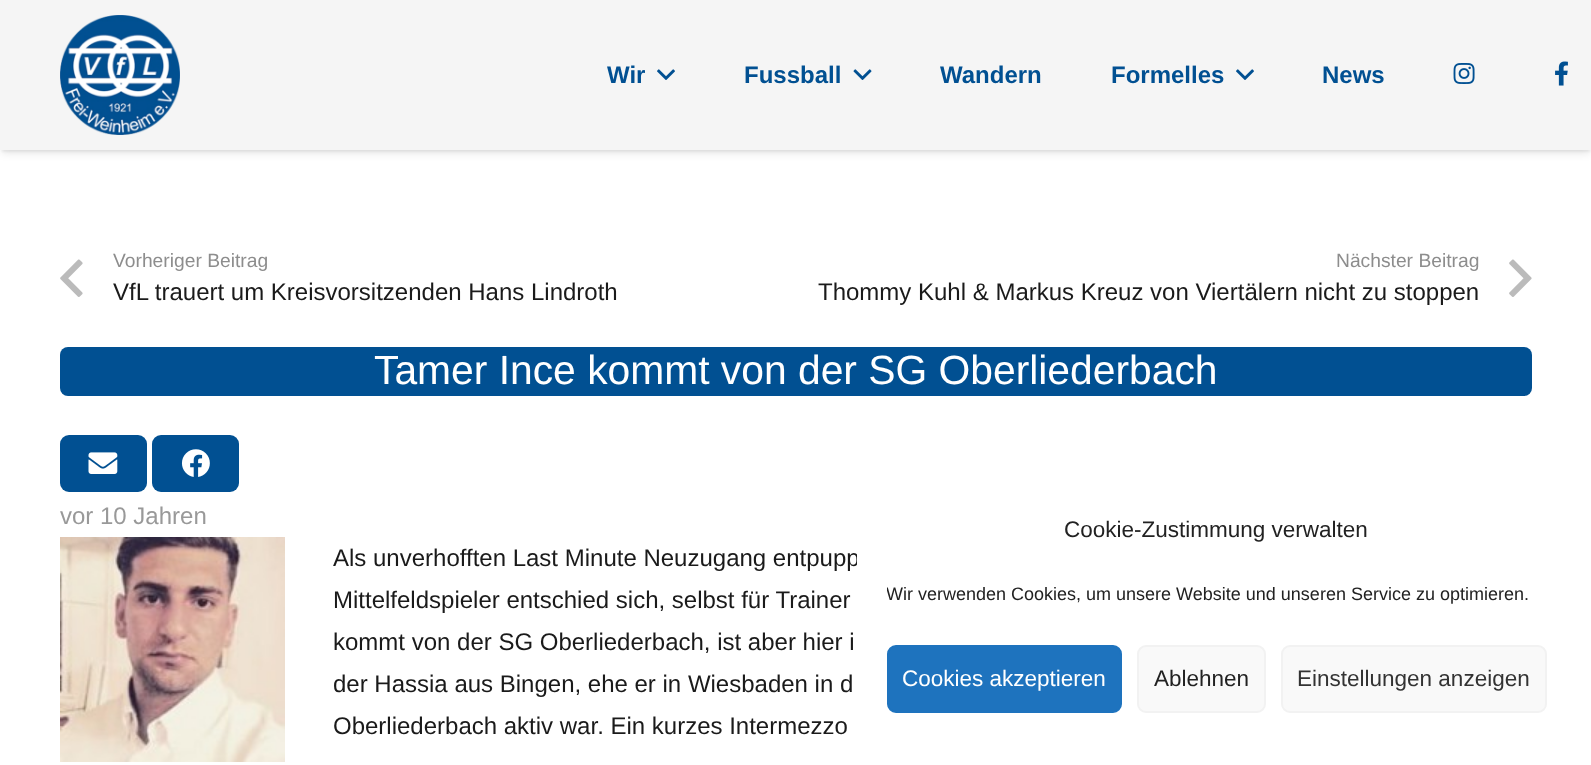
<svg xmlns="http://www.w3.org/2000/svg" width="1591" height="765">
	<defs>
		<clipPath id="clip1"><rect x="887" y="581" width="660" height="34" /></clipPath>
	</defs>
	<rect width="100%" height="100%" fill="#FFFFFF" />
	<rect x="2" y="5" width="1588" height="147" fill="#000000" fill-opacity="0.05" filter="blur(1px)" />
	<rect x="2" y="6" width="1588" height="147" fill="#000000" fill-opacity="0.1" filter="blur(4px)" />
	<rect x="0" y="0" width="1591" height="150" fill="#F5F5F5" />
	<image x="60" y="15" width="120" height="120" href="assets/img1.png" />
	<text x="607" y="83" font-family="Liberation Sans" font-size="24" font-weight="700" fill="#015092">Wir</text>
	<image x="657" y="69" width="18" height="11" href="assets/img2.png" />
	<text x="744" y="83" font-family="Liberation Sans" font-size="24" font-weight="700" fill="#015092">Fussball</text>
	<image x="853" y="69" width="19" height="11" href="assets/img3.png" />
	<g font-family="Liberation Sans" font-size="24" font-weight="700" fill="#015092">
		<text x="940" y="83">Wandern</text>
		<text x="1111" y="83">Formelles</text>
	</g>
	<image x="1236" y="69" width="18" height="11" href="assets/img2.png" />
	<text x="1322" y="83" font-family="Liberation Sans" font-size="24" font-weight="700" fill="#015092">News</text>
	<image x="1453" y="63" width="22" height="21" href="assets/img4.png" />
	<image x="1555" y="61" width="13" height="25" href="assets/img5.png" />
	<image x="60" y="259" width="23" height="38" href="assets/img6.png" />
	<text x="113" y="267" font-family="Liberation Sans" font-size="19.25" fill="#8D8D8D">Vorheriger Beitrag</text>
	<text x="113" y="300" font-family="Liberation Sans" font-size="24" fill="#1A1A1A">VfL trauert um Kreisvorsitzenden Hans Lindroth</text>
	<text x="1336" y="267" font-family="Liberation Sans" font-size="19.25" fill="#8D8D8D">Nächster Beitrag</text>
	<image x="1509" y="259" width="23" height="38" href="assets/img7.png" />
	<text x="818" y="300" font-family="Liberation Sans" font-size="24" fill="#1A1A1A">Thommy Kuhl &amp; Markus Kreuz von Viertälern nicht zu stoppen</text>
	<rect x="60" y="347" width="1472" height="49" rx="8" fill="#015092" />
	<text x="374" y="384" font-family="Liberation Sans" font-size="40.8" fill="#FFFFFF">Tamer Ince kommt von der SG Oberliederbach</text>
	<rect x="60" y="435" width="87" height="57" rx="9" fill="#015092" />
	<image x="88" y="452" width="30" height="22" href="assets/img8.png" />
	<rect x="152" y="435" width="87" height="57" rx="9" fill="#015092" />
	<image x="181" y="449" width="29" height="28" href="assets/img9.png" />
	<text x="60" y="524" font-family="Liberation Sans" font-size="24" fill="#999999">vor 10 Jahren</text>
	<image x="60" y="537" width="225" height="225" href="assets/img10.png" />
	<g font-family="Liberation Sans" font-size="24" fill="#1A1A1A">
		<text x="333" y="566">Als unverhofften Last Minute Neuzugang entpupp</text>
		<text x="333" y="608">Mittelfeldspieler entschied sich, selbst für Trainer</text>
		<text x="333" y="650">kommt von der SG Oberliederbach, ist aber hier i</text>
		<text x="333" y="692">der Hassia aus Bingen, ehe er in Wiesbaden in d</text>
		<text x="333" y="734">Oberliederbach aktiv war. Ein kurzes Intermezzo</text>
	</g>
	<rect x="857" y="486" width="720" height="264" rx="18" fill="#FFFFFF" />
	<text x="1064" y="537" font-family="Liberation Sans" font-size="22.5" fill="#222222">Cookie-Zustimmung verwalten</text>
	<g clip-path="url(#clip1)">
		<text x="886" y="600" font-family="Liberation Sans" font-size="18" fill="#222222">Wir verwenden Cookies, um unsere Website und unseren Service zu optimieren.</text>
	</g>
	<rect x="888" y="646" width="233" height="66" rx="8" fill="#1E73BE" stroke="#1E73BE" stroke-width="2" />
	<text x="902" y="686" font-family="Liberation Sans" font-size="22.5" fill="#FFFFFF">Cookies akzeptieren</text>
	<rect x="1138" y="646" width="127" height="66" rx="8" fill="#F9F9F9" stroke="#F2F2F2" stroke-width="2" />
	<text x="1154" y="686" font-family="Liberation Sans" font-size="22.5" fill="#222222">Ablehnen</text>
	<rect x="1282" y="646" width="264" height="66" rx="8" fill="#F9F9F9" stroke="#F2F2F2" stroke-width="2" />
	<text x="1297" y="686" font-family="Liberation Sans" font-size="22.5" fill="#333333">Einstellungen anzeigen</text>
</svg>
